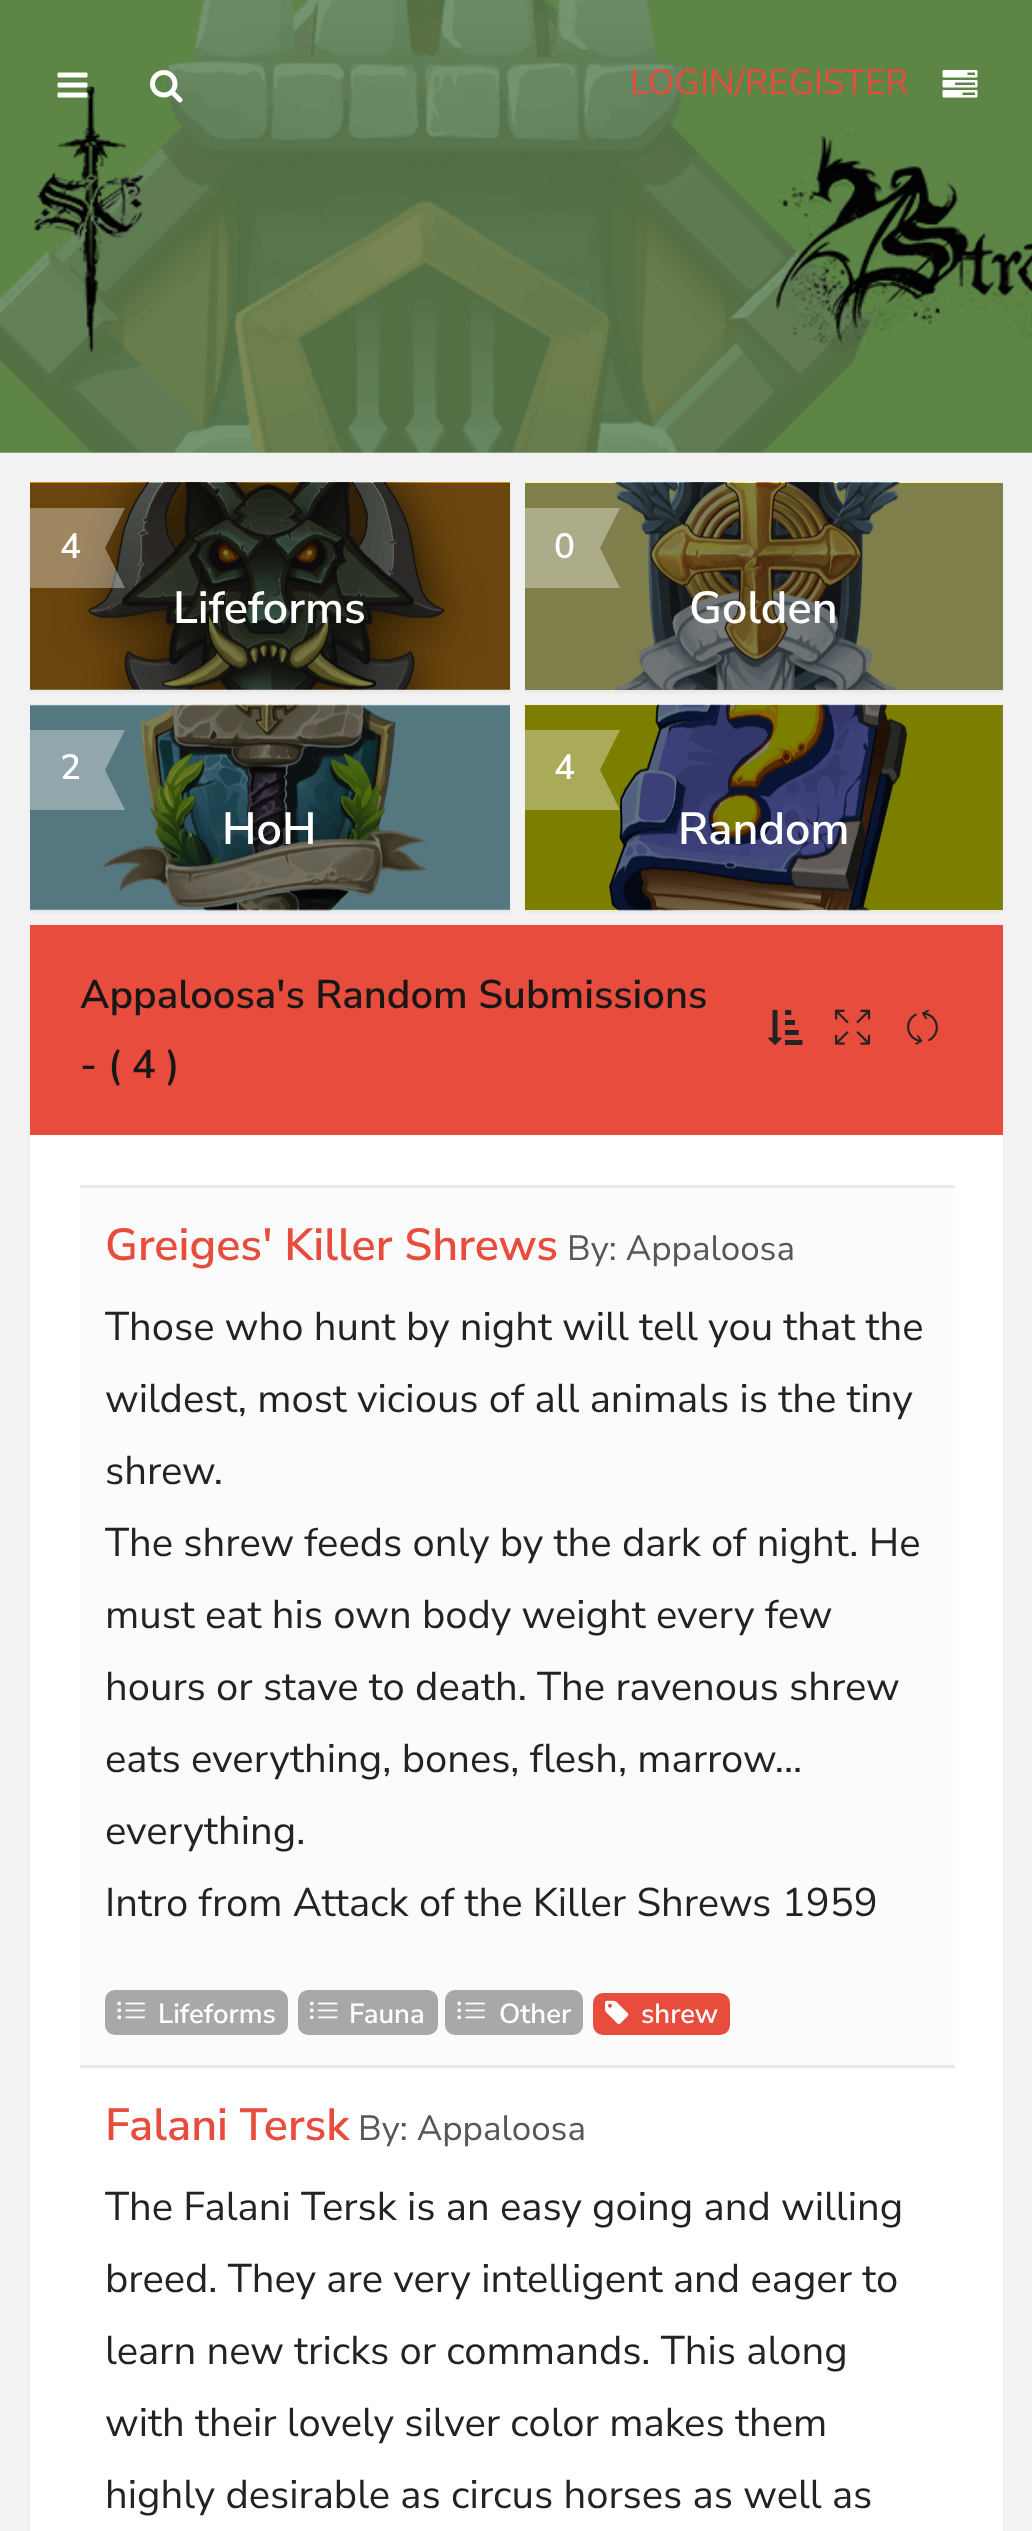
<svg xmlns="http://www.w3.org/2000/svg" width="1032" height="2531">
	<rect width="100%" height="100%" fill="#F2F2F2" />
	<rect x="0" y="452" width="1032" height="1" fill="#BABBBC" />
	<image x="0" y="0" width="1032" height="453" href="assets/img4.png" />
	<image x="57" y="72" width="31" height="26" href="assets/img1.png" />
	<image x="150" y="70" width="33" height="33" href="assets/img2.png" />
	<text x="630" y="94" font-family="Nunito Sans" font-size="35" fill="#E74C3C">LOGIN/REGISTER</text>
	<image x="942" y="70" width="36" height="28" href="assets/img3.png" />
	<rect x="30" y="485" width="480" height="208" fill="#E8E8E8" filter="blur(1px)" />
	<image x="30" y="482" width="480" height="208" href="assets/img5.png" />
	<rect x="30" y="508" width="75" height="80" fill="#FFFFFF" fill-opacity="0.35" />
	<text x="60" y="558" font-family="Nunito Sans" font-size="35" font-weight="600" fill="#FFFFFF">4</text>
	<path d="M105 508H125L105 548Z" fill="#FFFFFF" fill-opacity="0.35" />
	<path d="M125 588H105V548Z" fill="#FFFFFF" fill-opacity="0.35" />
	<text x="173" y="623" font-family="Nunito Sans" font-size="45" font-weight="600" fill="#FFFFFF">Lifeforms</text>
	<rect x="525" y="485" width="478" height="208" fill="#E8E8E8" filter="blur(1px)" />
	<rect x="525" y="483" width="478" height="207" fill="#F8F9FA" />
	<image x="525" y="482" width="478" height="208" href="assets/img6.png" />
	<rect x="525" y="483" width="478" height="207" fill="#000000" fill-opacity="0.5" />
	<rect x="525" y="508" width="75" height="80" fill="#ACAC8B" />
	<text x="554" y="558" font-family="Nunito Sans" font-size="35" font-weight="600" fill="#FFFFFF">0</text>
	<path d="M600 508H620L600 548Z" fill="#ACAC8B" />
	<path d="M620 588H600V548Z" fill="#ACAC8B" />
	<text x="689" y="623" font-family="Nunito Sans" font-size="45" font-weight="600" fill="#FFFFFF">Golden</text>
	<rect x="30" y="708" width="480" height="205" fill="#E8E8E8" filter="blur(1px)" />
	<image x="30" y="704" width="480" height="207" href="assets/img7.png" />
	<rect x="30" y="730" width="75" height="80" fill="#91A7AC" />
	<text x="60" y="779" font-family="Nunito Sans" font-size="35" font-weight="600" fill="#FFFFFF">2</text>
	<path d="M105 730H125L105 770Z" fill="#91A7AC" />
	<path d="M125 810H105V770Z" fill="#91A7AC" />
	<text x="222" y="844" font-family="Nunito Sans" font-size="45" font-weight="600" fill="#FFFFFF">HoH</text>
	<rect x="525" y="708" width="478" height="205" fill="#E8E8E8" filter="blur(1px)" />
	<rect x="525" y="705" width="478" height="205" fill="#F8F9FA" />
	<image x="525" y="704" width="478" height="207" href="assets/img8.png" />
	<rect x="525" y="705" width="478" height="205" fill="#000000" fill-opacity="0.5" />
	<rect x="525" y="730" width="75" height="80" fill="#AAAB59" />
	<text x="554" y="779" font-family="Nunito Sans" font-size="35" font-weight="600" fill="#FFFFFF">4</text>
	<path d="M600 730H620L600 770Z" fill="#AAAB59" />
	<path d="M620 810H600V770Z" fill="#FFFFFF" fill-opacity="0.35" />
	<text x="678" y="844" font-family="Nunito Sans" font-size="45" font-weight="600" fill="#FFFFFF">Random</text>
	<rect x="30" y="928" width="973" height="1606" fill="#E8E8E8" filter="blur(1px)" />
	<rect x="30" y="1135" width="973" height="1396" fill="#FFFFFF" />
	<rect x="30" y="925" width="973" height="210" fill="#E74C3C" />
	<g font-family="Nunito Sans" font-size="40" font-weight="600" fill="#171717">
		<text x="80" y="1008">Appaloosa's Random Submissions</text>
		<text x="80" y="1078">- ( 4 )</text>
	</g>
	<image x="768" y="1010" width="35" height="35" href="assets/img9.png" />
	<image x="835" y="1009" width="36" height="36" href="assets/img10.png" />
	<image x="907" y="1009" width="31" height="36" href="assets/img11.png" />
	<rect x="80" y="1188" width="873" height="877" fill="#FBFBFB" />
	<rect x="80" y="1185" width="875" height="3" fill="#E8E8E8" />
	<text x="105" y="1260" font-family="Nunito Sans" font-size="45" font-weight="600" fill="#E74C3C">Greiges' Killer Shrews</text>
	<text x="567" y="1260" font-family="Nunito Sans" font-size="35" fill="#575757">By: Appaloosa</text>
	<g font-family="Nunito Sans" font-size="40" fill="#232323">
		<text x="105" y="1340">Those who hunt by night will tell you that the</text>
		<text x="105" y="1412">wildest, most vicious of all animals is the tiny</text>
		<text x="105" y="1484">shrew.</text>
		<text x="105" y="1556">The shrew feeds only by the dark of night. He</text>
		<text x="105" y="1628">must eat his own body weight every few</text>
		<text x="105" y="1700">hours or stave to death. The ravenous shrew</text>
		<text x="105" y="1772">eats everything, bones, flesh, marrow...</text>
		<text x="105" y="1844">everything.</text>
		<text x="105" y="1916">Intro from Attack of the Killer Shrews 1959</text>
	</g>
	<rect x="105" y="1990" width="183" height="45" rx="10" fill="#A8A8A8" />
	<image x="117" y="2001" width="28" height="19" href="assets/img12.png" />
	<text x="158" y="2023" font-family="Nunito Sans" font-size="27.5" font-weight="600" fill="#FFFFFF">Lifeforms</text>
	<rect x="298" y="1990" width="140" height="45" rx="10" fill="#A8A8A8" />
	<image x="310" y="2001" width="28" height="19" href="assets/img13.png" />
	<text x="349" y="2023" font-family="Nunito Sans" font-size="27.5" font-weight="600" fill="#FFFFFF">Fauna</text>
	<rect x="445" y="1990" width="138" height="45" rx="10" fill="#A8A8A8" />
	<image x="457" y="2001" width="28" height="19" href="assets/img12.png" />
	<text x="499" y="2023" font-family="Nunito Sans" font-size="27.5" font-weight="600" fill="#FFFFFF">Other</text>
	<rect x="593" y="1993" width="137" height="42" rx="10" fill="#E74C3C" />
	<image x="605" y="2000" width="24" height="25" href="assets/img14.png" />
	<text x="641" y="2023" font-family="Nunito Sans" font-size="27.5" font-weight="600" fill="#FFFFFF">shrew</text>
	<rect x="80" y="2065" width="875" height="3" fill="#E8E8E8" />
	<text x="105" y="2140" font-family="Nunito Sans" font-size="45" font-weight="600" fill="#E74C3C">Falani Tersk</text>
	<text x="358" y="2140" font-family="Nunito Sans" font-size="35" fill="#575757">By: Appaloosa</text>
	<g font-family="Nunito Sans" font-size="40" fill="#232323">
		<text x="105" y="2220">The Falani Tersk is an easy going and willing</text>
		<text x="105" y="2292">breed. They are very intelligent and eager to</text>
		<text x="105" y="2364">learn new tricks or commands. This along</text>
		<text x="105" y="2436">with their lovely silver color makes them</text>
		<text x="105" y="2508">highly desirable as circus horses as well as</text>
	</g>
</svg>
